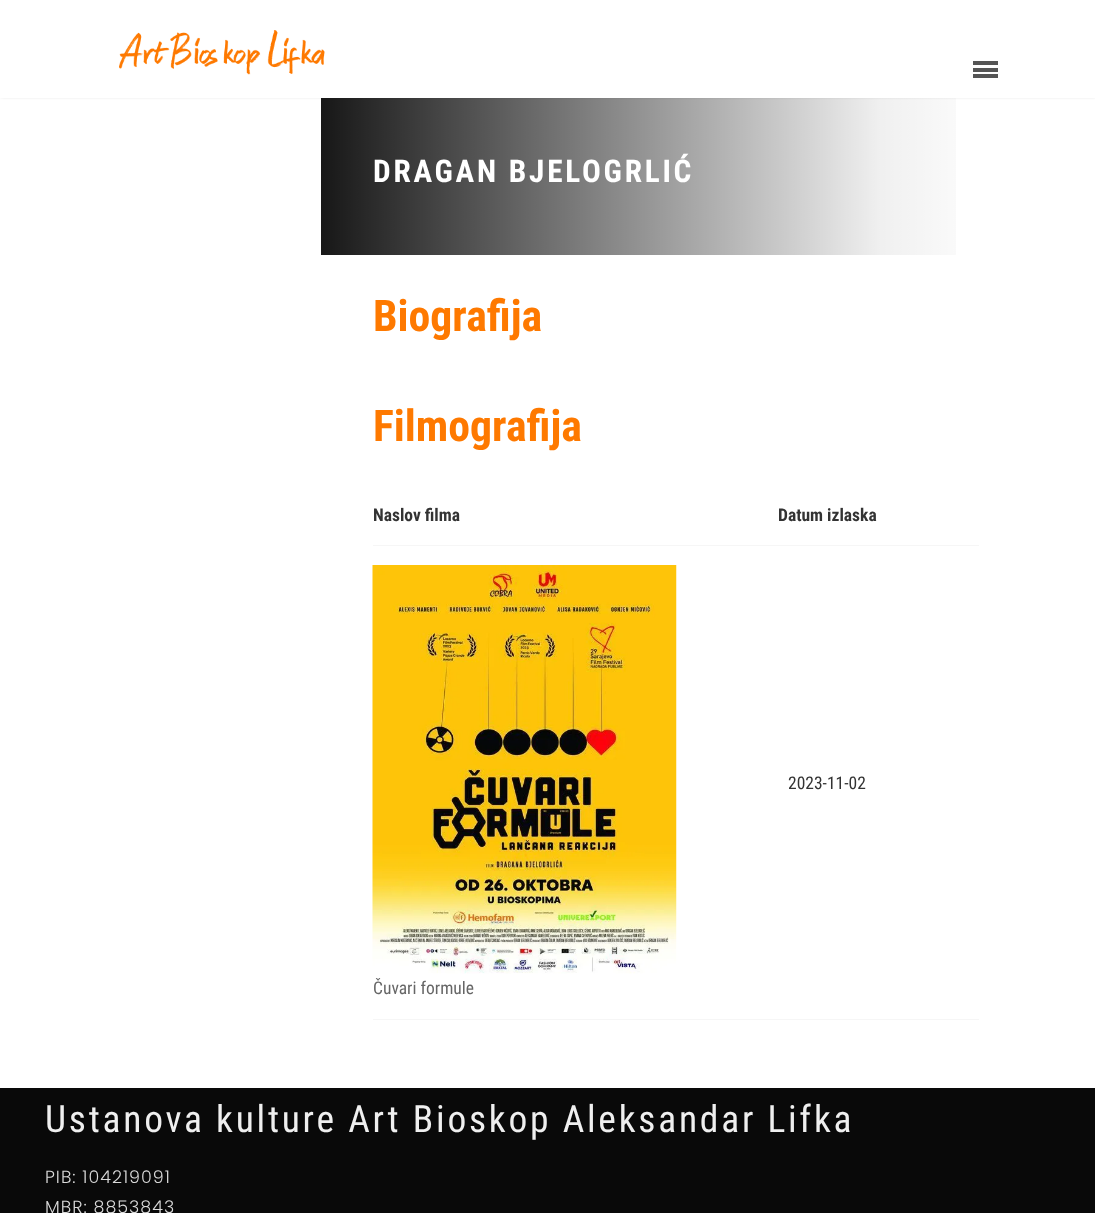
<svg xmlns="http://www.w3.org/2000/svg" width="1095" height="1213">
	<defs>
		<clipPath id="clip1"><path d="M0 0H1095V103H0ZM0 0H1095V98H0Z" clip-rule="evenodd" /></clipPath>
		<linearGradient id="g1" gradientUnits="userSpaceOnUse" x1="321" y1="176" x2="979" y2="176"><stop offset="0" stop-color="#000000" stop-opacity="0.91" /><stop offset="0.85" stop-color="#000000" stop-opacity="0.06" /><stop offset="1" stop-color="#000000" stop-opacity="0.01" /></linearGradient>
	</defs>
	<rect width="100%" height="100%" fill="#FFFFFF" />
	<g clip-path="url(#clip1)">
		<rect x="1" y="-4" width="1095" height="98" fill="#000000" filter="blur(2.5px)" />
	</g>
	<image x="119" y="30" width="206" height="45" href="assets/img1.png" />
	<rect x="973" y="68" width="25" height="4" fill="#555555" />
	<rect x="973" y="61" width="25" height="4" fill="#555555" />
	<rect x="973" y="74" width="25" height="4" fill="#555555" />
	<rect x="321" y="98" width="635" height="157" fill="url(#g1)" />
	<text x="373" y="182" font-family="Roboto Condensed" font-size="31.25" font-weight="700" letter-spacing="2.75" fill="#FFFFFF">DRAGAN BJELOGRLIĆ</text>
	<g font-family="Roboto Condensed" font-size="43.75" font-weight="700" fill="#FE7900">
		<text x="373" y="331">Biografija</text>
		<text x="373" y="441">Filmografija</text>
	</g>
	<rect x="373" y="545" width="606" height="1" fill="#F6F6F6" />
	<g font-family="Roboto Condensed" font-size="17.5" font-weight="700" fill="#333333">
		<text x="373" y="521">Naslov filma</text>
		<text x="778" y="521">Datum izlaska</text>
	</g>
	<text x="788" y="789" font-family="Roboto Condensed" font-size="17.5" fill="#333333">2023-11-02</text>
	<rect x="373" y="1019" width="606" height="1" fill="#F6F6F6" />
	<image x="372" y="565" width="305" height="409" href="assets/img2.png" />
	<text x="373" y="994" font-family="Roboto Condensed" font-size="17.5" fill="#666666">Čuvari formule</text>
	<rect x="0" y="1088" width="1095" height="125" fill="#090909" />
	<text x="45" y="1132" font-family="Roboto Condensed" font-size="37.5" letter-spacing="2.75" fill="#EFEFEF">Ustanova kulture Art Bioskop Aleksandar Lifka</text>
	<g font-family="Poppins" font-size="17.5" font-weight="300" letter-spacing="1" fill="#DADADA">
		<text x="45" y="1183">PIB: 104219091</text>
		<text x="45" y="1213">MBR: 8853843</text>
	</g>
</svg>
